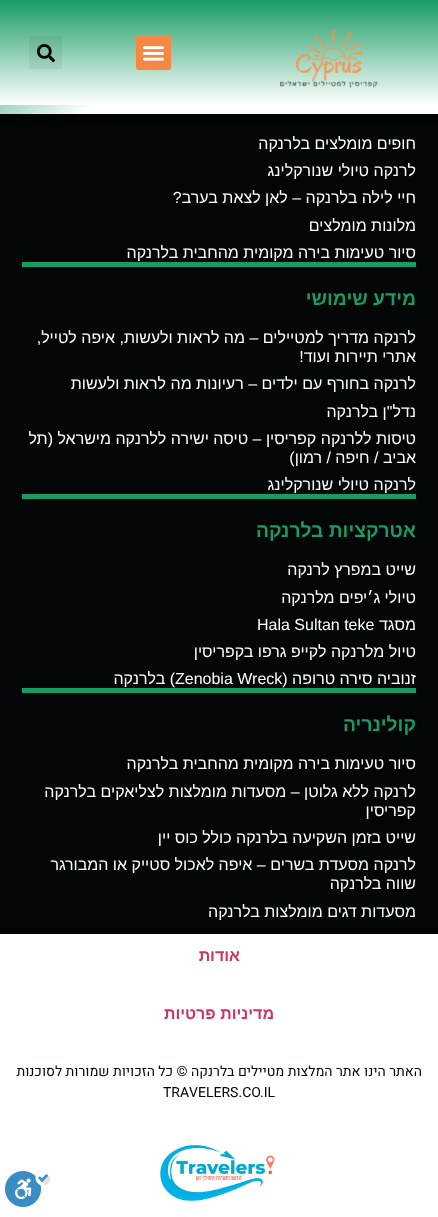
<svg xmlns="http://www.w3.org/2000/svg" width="438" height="1217">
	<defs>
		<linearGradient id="g1" gradientUnits="userSpaceOnUse" x1="100" y1="-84" x2="338" y2="198"><stop offset="0" stop-color="#199C64" /><stop offset="0.38" stop-color="#FFFFFF" /></linearGradient>
		<linearGradient id="g2" gradientUnits="userSpaceOnUse" x1="219" y1="0" x2="219" y2="105"><stop offset="0" stop-color="#199C64" /><stop offset="1" stop-color="#FFFFFF" /></linearGradient>
	</defs>
	<rect width="100%" height="100%" fill="#FFFFFF" />
	<rect x="0" y="114" width="438" height="820" fill="#030606" />
	<rect x="0" y="0" width="438" height="114" fill="#000000" fill-opacity="0.5" filter="blur(5px)" />
	<rect x="0" y="105" width="438" height="9" fill="url(#g1)" />
	<rect x="0" y="0" width="438" height="105" fill="url(#g2)" />
	<image x="280" y="29" width="98" height="59" href="assets/img1.png" />
	<rect x="136" y="35" width="35" height="35" rx="3" fill="#F58842" />
	<image x="143" y="46" width="21" height="15" href="assets/img2.png" />
	<rect x="29" y="36" width="33" height="33" fill="#000000" fill-opacity="0.05" />
	<image x="36" y="44" width="19" height="19" href="assets/img3.png" />
	<g font-family="Liberation Sans" font-size="16" direction="rtl" fill="#FFFFFF">
		<text x="416" y="149">חופים מומלצים בלרנקה</text>
		<text x="416" y="176">לרנקה טיולי שנורקלינג</text>
		<text x="416" y="203">חיי לילה בלרנקה – לאן לצאת בערב?</text>
		<text x="416" y="231">מלונות מומלצים</text>
		<text x="416" y="258">סיור טעימות בירה מקומית מהחבית בלרנקה</text>
	</g>
	<rect x="22" y="262" width="394" height="5" fill="#199C64" />
	<text x="416" y="305" font-family="Liberation Sans" font-size="19.25" font-weight="700" direction="rtl" fill="#199C64">מידע שימושי</text>
	<g font-family="Liberation Sans" font-size="16" direction="rtl" fill="#FFFFFF">
		<text x="416" y="343">לרנקה מדריך למטיילים – מה לראות ולעשות, איפה לטייל,</text>
		<text x="416" y="362">אתרי תיירות ועוד!</text>
		<text x="416" y="389">לרנקה בחורף עם ילדים – רעיונות מה לראות ולעשות</text>
		<text x="416" y="417">נדל"ן בלרנקה</text>
		<text x="416" y="444">טיסות ללרנקה קפריסין – טיסה ישירה ללרנקה מישראל (תל</text>
		<text x="416" y="463">אביב / חיפה / רמון)</text>
		<text x="416" y="490">לרנקה טיולי שנורקלינג</text>
	</g>
	<rect x="22" y="494" width="394" height="5" fill="#199C64" />
	<text x="416" y="537" font-family="Liberation Sans" font-size="19.25" font-weight="700" direction="rtl" fill="#199C64">אטרקציות בלרנקה</text>
	<g font-family="Liberation Sans" font-size="16" direction="rtl" fill="#FFFFFF">
		<text x="416" y="575">שייט במפרץ לרנקה</text>
		<text x="416" y="603">טיולי ג׳יפים מלרנקה</text>
		<text x="416" y="630">מסגד</text>
	</g>
	<text x="257" y="630" font-family="Liberation Sans" font-size="16" fill="#FFFFFF">Hala Sultan teke</text>
	<text x="416" y="657" font-family="Liberation Sans" font-size="16" direction="rtl" fill="#FFFFFF">טיול מלרנקה לקייפ גרפו בקפריסין</text>
	<text x="175" y="684" font-family="Liberation Sans" font-size="16" fill="#FFFFFF">Zenobia Wreck</text>
	<g font-family="Liberation Sans" font-size="16" direction="rtl" fill="#FFFFFF">
		<text x="416" y="684">זנוביה סירה טרופה (</text>
		<text x="175" y="684">) בלרנקה</text>
	</g>
	<rect x="22" y="688" width="394" height="5" fill="#199C64" />
	<text x="416" y="731" font-family="Liberation Sans" font-size="19.25" font-weight="700" direction="rtl" fill="#199C64">קולינריה</text>
	<g font-family="Liberation Sans" font-size="16" direction="rtl" fill="#FFFFFF">
		<text x="416" y="769">סיור טעימות בירה מקומית מהחבית בלרנקה</text>
		<text x="416" y="797">לרנקה ללא גלוטן – מסעדות מומלצות לצליאקים בלרנקה</text>
		<text x="416" y="816">קפריסין</text>
		<text x="416" y="843">שייט בזמן השקיעה בלרנקה כולל כוס יין</text>
		<text x="416" y="870">לרנקה מסעדת בשרים – איפה לאכול סטייק או המבורגר</text>
		<text x="416" y="889">שווה בלרנקה</text>
		<text x="416" y="917">מסעדות דגים מומלצות בלרנקה</text>
	</g>
	<g font-family="Liberation Sans" font-size="16" font-weight="700" direction="rtl" fill="#CC3366">
		<text x="240" y="961">אודות</text>
		<text x="274" y="1019">מדיניות פרטיות</text>
	</g>
	<text x="422" y="1076" font-family="Heebo" font-size="14" direction="rtl" fill="#030606">האתר הינו אתר המלצות מטיילים בלרנקה © כל הזכויות שמורות לסוכנות</text>
	<text x="163" y="1097" font-family="Heebo" font-size="14" fill="#030606">TRAVELERS.CO.IL</text>
	<image x="160" y="1145" width="115" height="56" href="assets/img4.png" />
	<image x="5" y="1171" width="46" height="36" href="assets/img5.png" />
</svg>
